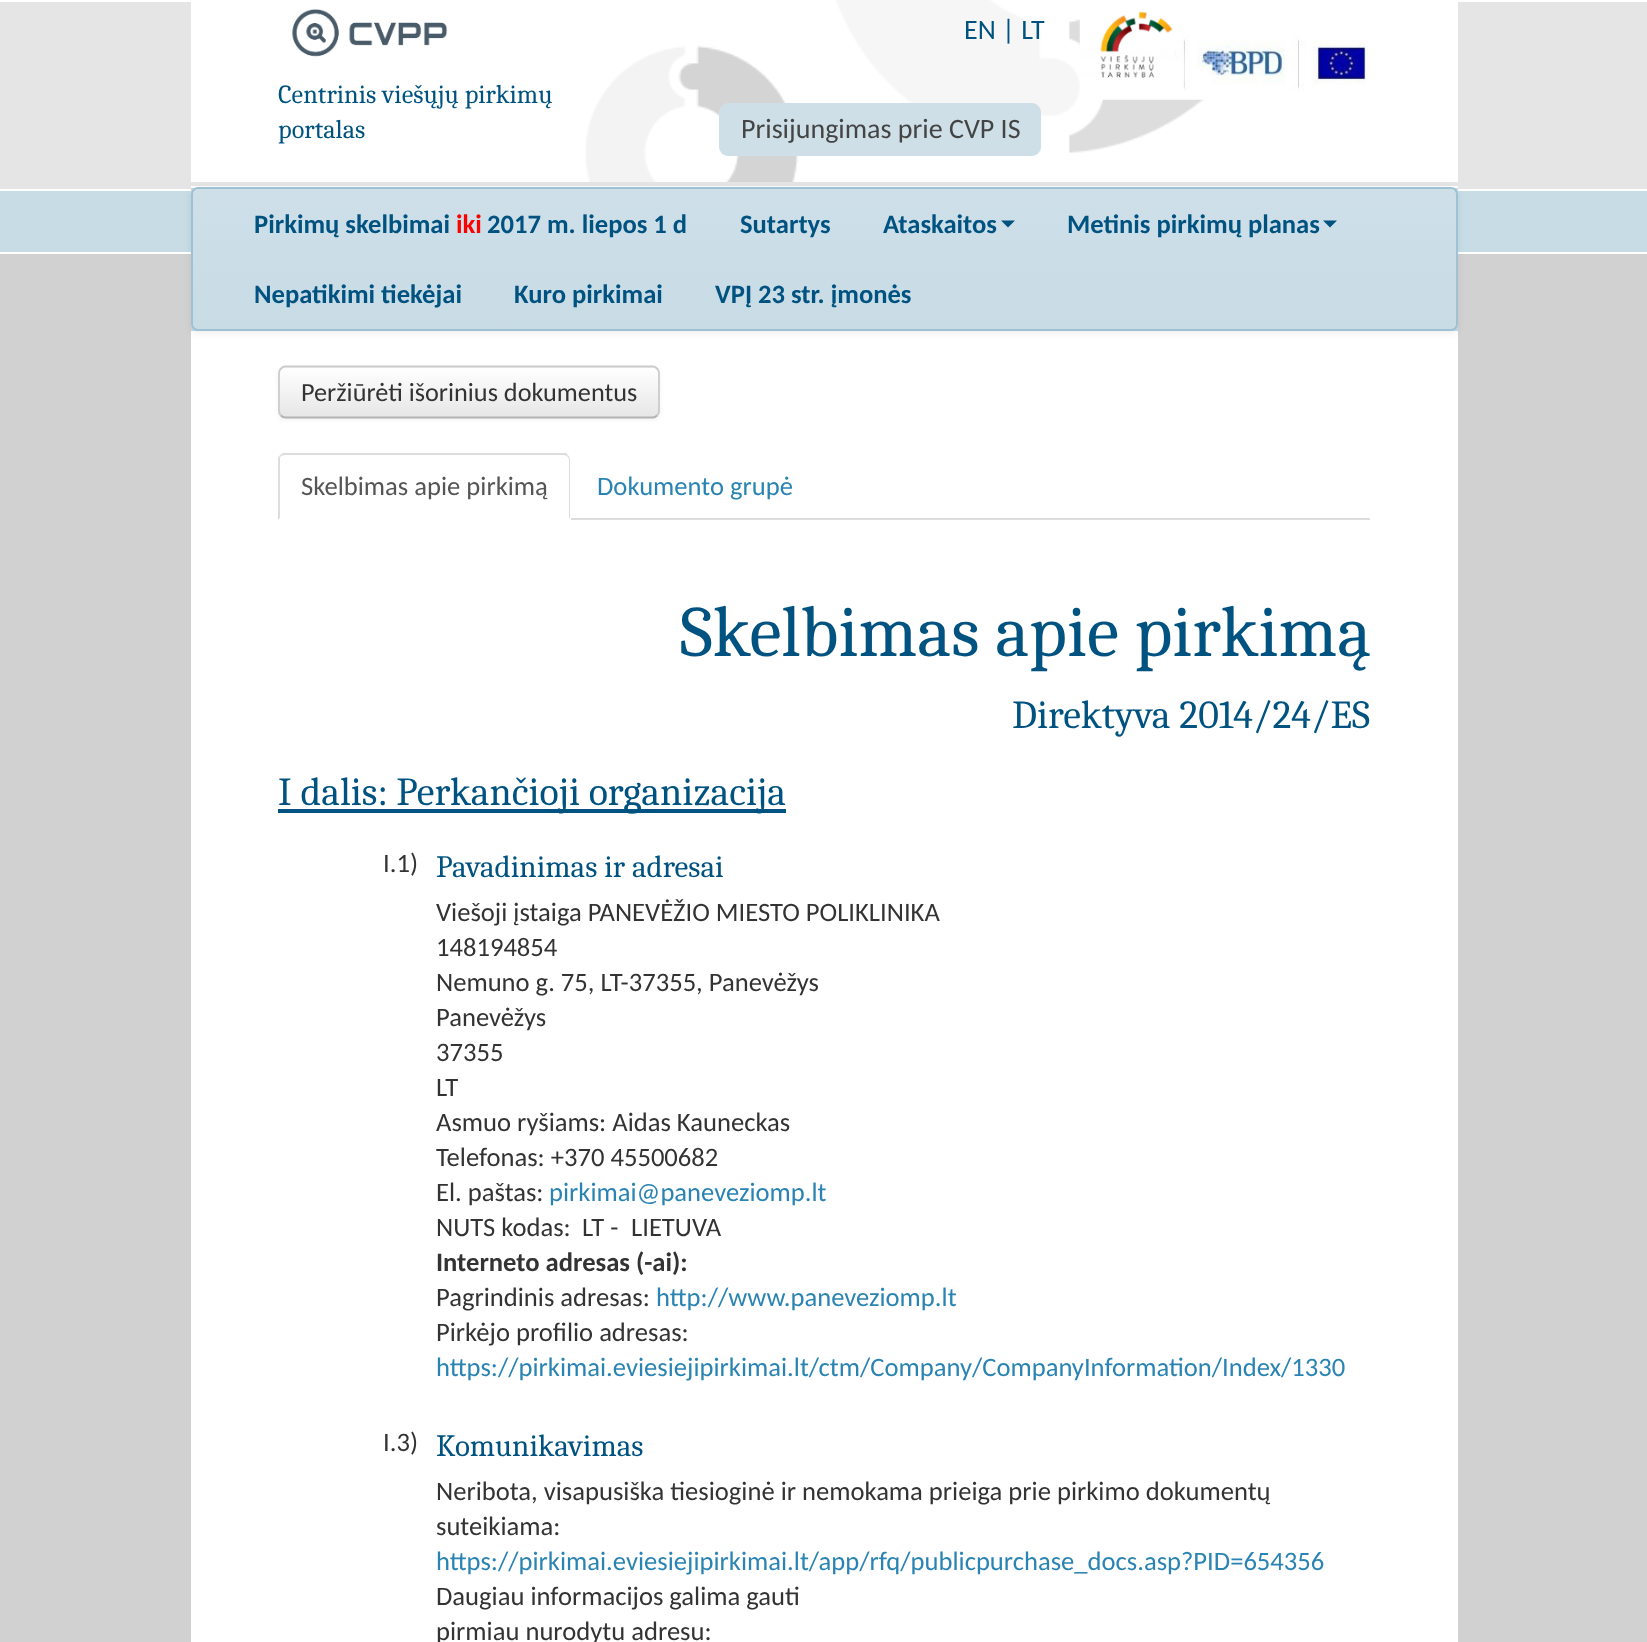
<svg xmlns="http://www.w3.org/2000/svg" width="1647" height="1642">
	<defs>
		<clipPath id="clip1"><rect x="191" y="187" width="1267" height="144" rx="7" /></clipPath>
		<linearGradient id="g1" gradientUnits="userSpaceOnUse" x1="824" y1="189" x2="824" y2="329"><stop offset="0" stop-color="#CEDFE8" /><stop offset="1" stop-color="#C8DCE6" /></linearGradient>
		<clipPath id="clip2"><rect x="278" y="366" width="382" height="52" rx="7" /></clipPath>
		<linearGradient id="g2" gradientUnits="userSpaceOnUse" x1="469" y1="368" x2="469" y2="417"><stop offset="0" stop-color="#FFFFFF" /><stop offset="1" stop-color="#E6E6E6" /></linearGradient>
	</defs>
	<rect width="100%" height="100%" fill="#D1D1D1" />
	<rect x="0" y="2" width="1647" height="187" fill="#E5E5E5" />
	<rect x="0" y="0" width="1647" height="2" fill="#FFFFFF" />
	<rect x="191" y="2" width="1267" height="180" fill="#FFFFFF" />
	<image x="585" y="0" width="620" height="182" href="assets/img1.png" />
	<image x="292" y="9" width="156" height="48" href="assets/img2.png" />
	<g font-family="Caladea" font-size="26.25" fill="#005380">
		<text x="278" y="103">Centrinis viešųjų pirkimų</text>
		<text x="278" y="138">portalas</text>
	</g>
	<text x="964" y="39" font-family="Carlito" font-size="28" fill="#005380">EN | LT</text>
	<rect x="719" y="103" width="322" height="53" rx="9" fill="#CEDFE8" />
	<text x="741" y="138" font-family="Carlito" font-size="28" fill="#444444">Prisijungimas prie CVP IS</text>
	<image x="1079" y="0" width="290" height="100" href="assets/img3.png" />
	<rect x="0" y="191" width="1647" height="61" fill="#C8DCE6" />
	<rect x="0" y="189" width="1647" height="2" fill="#FFFFFF" />
	<rect x="0" y="252" width="1647" height="2" fill="#FFFFFF" />
	<rect x="191" y="188" width="1267" height="143" fill="#C8DCE6" />
	<rect x="191" y="186" width="1267" height="2" fill="#FFFFFF" />
	<rect x="191" y="331" width="1267" height="1311" fill="#FFFFFF" />
	<rect x="191" y="189" width="1267" height="144" rx="7" fill="#000000" fill-opacity="0.07" filter="blur(3.5px)" />
	<g clip-path="url(#clip1)">
		<rect x="191" y="189" width="1267" height="140" fill="url(#g1)" />
	</g>
	<rect x="192" y="188" width="1265" height="142" rx="6" fill="none" stroke="#9EC1D3" stroke-width="2" />
	<text x="254" y="233" font-family="Carlito" font-size="26.6" font-weight="700" fill="#005380">Pirkimų skelbimai</text>
	<text x="456" y="233" font-family="Carlito" font-size="26.6" font-weight="700" fill="#FF0000">iki</text>
	<g font-family="Carlito" font-size="26.6" font-weight="700" fill="#005380">
		<text x="487" y="233">2017 m. liepos 1 d</text>
		<text x="740" y="233">Sutartys</text>
		<text x="883" y="233">Ataskaitos</text>
	</g>
	<path d="M1001 220.5H1015L1008 227.5Z" fill="#005380" />
	<text x="1067" y="233" font-family="Carlito" font-size="26.6" font-weight="700" fill="#005380">Metinis pirkimų planas</text>
	<path d="M1323 220.5H1337L1330 227.5Z" fill="#005380" />
	<g font-family="Carlito" font-size="26.6" font-weight="700" fill="#005380">
		<text x="254" y="303">Nepatikimi tiekėjai</text>
		<text x="514" y="303">Kuro pirkimai</text>
		<text x="715" y="303">VPĮ 23 str. įmonės</text>
	</g>
	<rect x="278" y="368" width="382" height="52" rx="7" fill="#000000" fill-opacity="0.05" filter="blur(2px)" />
	<rect x="278" y="366" width="382" height="52" rx="7" fill="#F5F5F5" />
	<g clip-path="url(#clip2)">
		<rect x="278" y="368" width="382" height="49" fill="url(#g2)" />
	</g>
	<path d="M657 415.5C656 416.5 654.5 417.5 653 417.5H285C283.5 417.5 282 416.5 281 415.5" fill="none" stroke="#B3B3B3" stroke-width="1.8" />
	<path d="M281 415.5C280 414.5 279 413 279 411V373C279 371 280 369.5 281 368.5C282 367.5 283.5 366.5 285 366.5H653C654.5 366.5 656 367.5 657 368.5C658 369.5 659 371 659 373V411C659 413 658 414.5 657 415.5" fill="none" stroke="#CCCCCC" stroke-width="1.8" />
	<text x="301" y="401" font-family="Carlito" font-size="26.25" fill="#333333">Peržiūrėti išorinius dokumentus</text>
	<rect x="571" y="518" width="799" height="2" fill="#DDDDDD" />
	<path d="M285 455C284 455 282 456 281 456L280 455L283 453H566L568 455L567 456L564 455Z" fill="#DDDDDD" />
	<path d="M568 455C569 457 570 458 570 460V519L569 518V459L567 456Z" fill="#DDDDDD" />
	<path d="M278 520V458L280 455L281 456C280 457 280 458 280 460V518Z" fill="#DDDDDD" />
	<text x="301" y="495" font-family="Carlito" font-size="26.6" fill="#555555">Skelbimas apie pirkimą</text>
	<text x="597" y="495" font-family="Carlito" font-size="26.6" fill="#2A84B3">Dokumento grupė</text>
	<text x="680" y="656" font-family="Caladea" font-size="72.25" fill="#005380">Skelbimas apie pirkimą</text>
	<text x="1012" y="728" font-family="Caladea" font-size="39.9" fill="#005380">Direktyva 2014/24/ES</text>
	<rect x="278" y="809" width="508" height="4" fill="#005380" />
	<text x="278" y="805" font-family="Caladea" font-size="39.9" fill="#005380">I dalis: Perkančioji organizacija</text>
	<text x="383" y="872" font-family="Carlito" font-size="26.6" fill="#333333">I.1)</text>
	<text x="436" y="877" font-family="Caladea" font-size="31.1" fill="#005380">Pavadinimas ir adresai</text>
	<g font-family="Carlito" font-size="26.6" fill="#333333">
		<text x="436" y="921">Viešoji įstaiga PANEVĖŽIO MIESTO POLIKLINIKA</text>
		<text x="436" y="956">148194854</text>
		<text x="436" y="991">Nemuno g. 75, LT-37355, Panevėžys</text>
		<text x="436" y="1026">Panevėžys</text>
		<text x="436" y="1061">37355</text>
		<text x="436" y="1096">LT</text>
		<text x="436" y="1131">Asmuo ryšiams: Aidas Kauneckas</text>
		<text x="436" y="1166">Telefonas: +370 45500682</text>
		<text x="436" y="1201">El. paštas:</text>
	</g>
	<text x="549" y="1201" font-family="Carlito" font-size="26.6" fill="#2A84B3">pirkimai@paneveziomp.lt</text>
	<g font-family="Carlito" font-size="26.6" fill="#333333">
		<text x="436" y="1236">NUTS kodas:</text>
		<text x="582" y="1236">LT -</text>
		<text x="631" y="1236">LIETUVA</text>
	</g>
	<text x="436" y="1271" font-family="Carlito" font-size="26.6" font-weight="700" fill="#333333">Interneto adresas (-ai):</text>
	<text x="436" y="1306" font-family="Carlito" font-size="26.6" fill="#333333">Pagrindinis adresas:</text>
	<text x="656" y="1306" font-family="Carlito" font-size="26.6" fill="#2A84B3">http://www.paneveziomp.lt</text>
	<text x="436" y="1341" font-family="Carlito" font-size="26.6" fill="#333333">Pirkėjo profilio adresas:</text>
	<text x="436" y="1376" font-family="Carlito" font-size="26.6" fill="#2A84B3">https://pirkimai.eviesiejipirkimai.lt/ctm/Company/CompanyInformation/Index/1330</text>
	<text x="383" y="1451" font-family="Carlito" font-size="26.6" fill="#333333">I.3)</text>
	<text x="436" y="1456" font-family="Caladea" font-size="31.1" fill="#005380">Komunikavimas</text>
	<g font-family="Carlito" font-size="26.6" fill="#333333">
		<text x="436" y="1500">Neribota, visapusiška tiesioginė ir nemokama prieiga prie pirkimo dokumentų</text>
		<text x="436" y="1535">suteikiama:</text>
	</g>
	<text x="436" y="1570" font-family="Carlito" font-size="26.6" fill="#2A84B3">https://pirkimai.eviesiejipirkimai.lt/app/rfq/publicpurchase_docs.asp?PID=654356</text>
	<g font-family="Carlito" font-size="26.6" fill="#333333">
		<text x="436" y="1605">Daugiau informacijos galima gauti</text>
		<text x="436" y="1640">pirmiau nurodytu adresu:</text>
	</g>
</svg>
